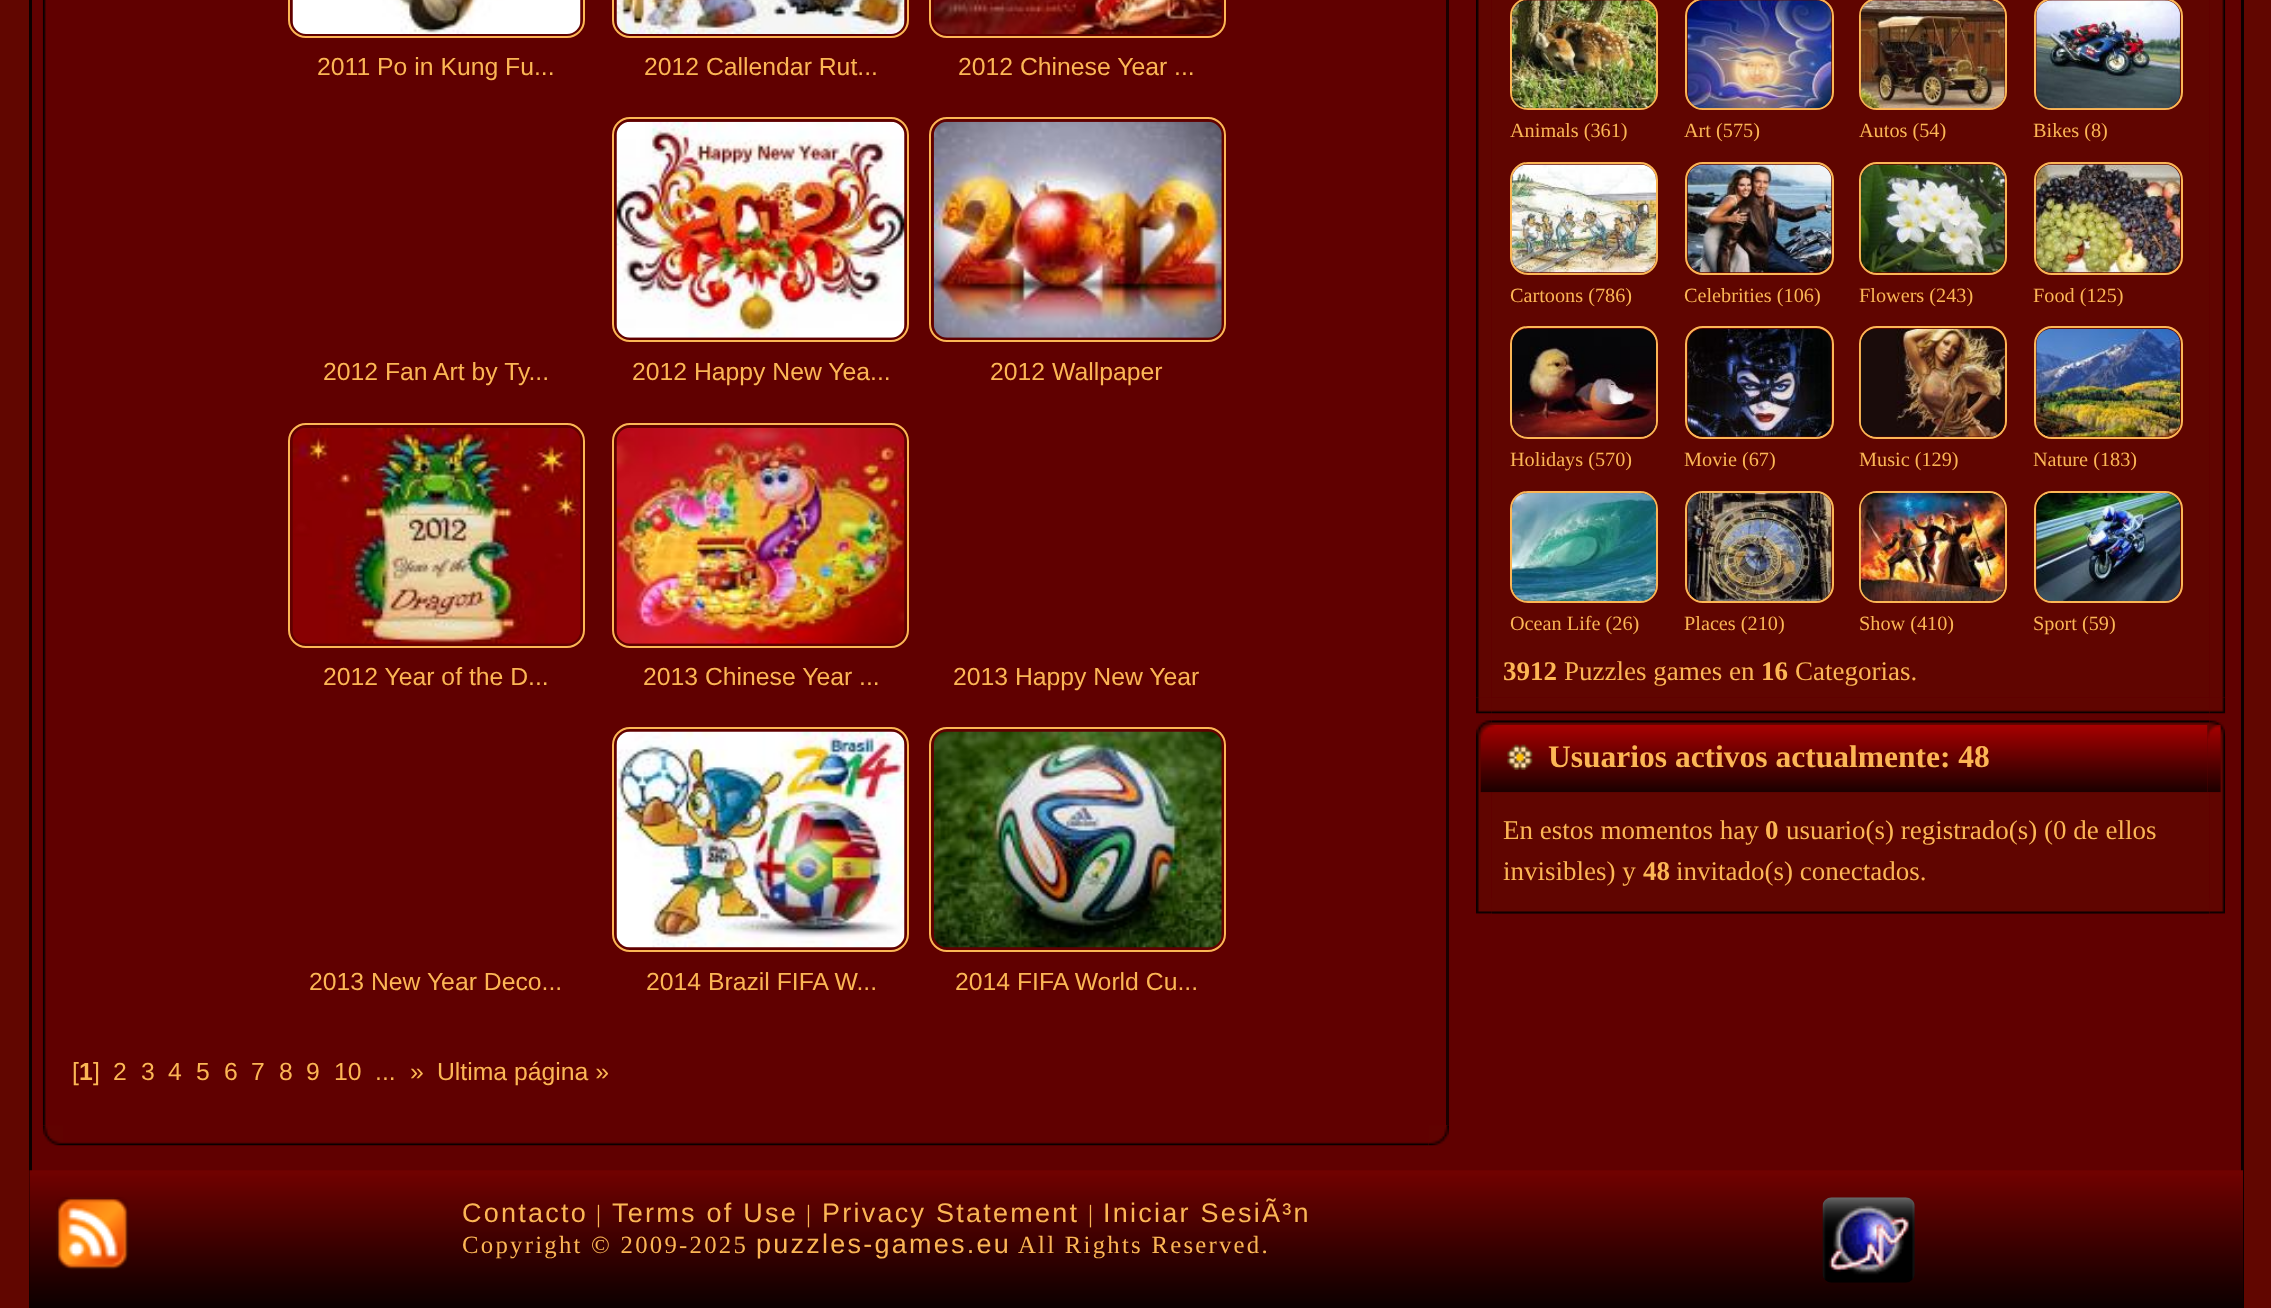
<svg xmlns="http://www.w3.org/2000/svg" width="2271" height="1308">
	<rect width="100%" height="100%" fill="#610600" />
	<rect x="29" y="0" width="3" height="1308" fill="#0A0000" />
	<rect x="32" y="0" width="2209" height="1171" fill="#600000" />
	<rect x="2241" y="0" width="3" height="1308" fill="#0A0000" />
	<image x="42" y="0" width="4" height="1125" href="assets/img1.png" />
	<rect x="289" y="-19" width="295" height="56" rx="17" fill="none" stroke="#FCB655" stroke-width="2" />
	<image x="292" y="0" width="289" height="34" href="assets/img2.png" />
	<text x="317" y="75" font-family="Liberation Sans" font-size="24.75" fill="#FCB655">2011 Po in Kung Fu...</text>
	<rect x="613" y="-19" width="295" height="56" rx="17" fill="none" stroke="#FCB655" stroke-width="2" />
	<image x="616" y="0" width="289" height="34" href="assets/img3.png" />
	<text x="644" y="75" font-family="Liberation Sans" font-size="24.75" fill="#FCB655">2012 Callendar Rut...</text>
	<rect x="930" y="-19" width="295" height="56" rx="17" fill="none" stroke="#FCB655" stroke-width="2" />
	<image x="934" y="0" width="288" height="34" href="assets/img4.png" />
	<g font-family="Liberation Sans" font-size="24.75" fill="#FCB655">
		<text x="958" y="75">2012 Chinese Year ...</text>
		<text x="323" y="380">2012 Fan Art by Ty...</text>
	</g>
	<rect x="613" y="118" width="295" height="223" rx="17" fill="none" stroke="#FCB655" stroke-width="2" />
	<image x="616" y="121" width="289" height="217" href="assets/img5.png" />
	<text x="632" y="380" font-family="Liberation Sans" font-size="24.75" fill="#FCB655">2012 Happy New Yea...</text>
	<rect x="930" y="118" width="295" height="223" rx="17" fill="none" stroke="#FCB655" stroke-width="2" />
	<image x="933" y="121" width="289" height="217" href="assets/img6.png" />
	<text x="990" y="380" font-family="Liberation Sans" font-size="24.75" fill="#FCB655">2012 Wallpaper</text>
	<rect x="289" y="424" width="295" height="223" rx="17" fill="none" stroke="#FCB655" stroke-width="2" />
	<image x="292" y="428" width="289" height="216" href="assets/img7.png" />
	<text x="323" y="685" font-family="Liberation Sans" font-size="24.75" fill="#FCB655">2012 Year of the D...</text>
	<rect x="613" y="424" width="295" height="223" rx="17" fill="none" stroke="#FCB655" stroke-width="2" />
	<image x="616" y="427" width="289" height="217" href="assets/img8.png" />
	<g font-family="Liberation Sans" font-size="24.75" fill="#FCB655">
		<text x="643" y="685">2013 Chinese Year ...</text>
		<text x="953" y="685">2013 Happy New Year</text>
		<text x="309" y="990">2013 New Year Deco...</text>
	</g>
	<rect x="613" y="728" width="295" height="223" rx="17" fill="none" stroke="#FCB655" stroke-width="2" />
	<image x="616" y="731" width="289" height="217" href="assets/img9.png" />
	<text x="646" y="990" font-family="Liberation Sans" font-size="24.75" fill="#FCB655">2014 Brazil FIFA W...</text>
	<rect x="930" y="728" width="295" height="223" rx="17" fill="none" stroke="#FCB655" stroke-width="2" />
	<image x="933" y="731" width="289" height="217" href="assets/img10.png" />
	<g font-family="Liberation Sans" font-size="24.75" fill="#FCB655">
		<text x="955" y="990">2014 FIFA World Cu...</text>
		<text x="72" y="1080">[</text>
	</g>
	<text x="79" y="1080" font-family="Liberation Sans" font-size="24.75" font-weight="700" fill="#FCB655">1</text>
	<g font-family="Liberation Sans" font-size="24.75" fill="#FCB655">
		<text x="93" y="1080">]</text>
		<text x="113" y="1080">2</text>
		<text x="141" y="1080">3</text>
		<text x="168" y="1080">4</text>
		<text x="196" y="1080">5</text>
		<text x="224" y="1080">6</text>
		<text x="251" y="1080">7</text>
		<text x="279" y="1080">8</text>
		<text x="306" y="1080">9</text>
		<text x="334" y="1080">10</text>
		<text x="375" y="1080">...</text>
		<text x="410" y="1080">»</text>
		<text x="437" y="1080">Ultima página »</text>
	</g>
	<rect x="1446" y="0" width="3" height="1125" fill="#1A0000" />
	<image x="42" y="1125" width="21" height="21" href="assets/img11.png" />
	<image x="1428" y="1125" width="21" height="21" href="assets/img13.png" />
	<image x="63" y="1142" width="1366" height="4" href="assets/img12.png" />
	<image x="1476" y="697" width="16" height="17" href="assets/img32.png" />
	<image x="1476" y="0" width="15" height="698" href="assets/img14.png" />
	<rect x="1492" y="0" width="717" height="697" fill="#600500" />
	<image x="2209" y="697" width="17" height="17" href="assets/img34.png" />
	<image x="2210" y="0" width="16" height="698" href="assets/img15.png" />
	<rect x="1511" y="-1" width="146" height="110" rx="17" fill="none" stroke="#FCB655" stroke-width="2" />
	<image x="1512" y="0" width="144" height="109" href="assets/img16.png" />
	<text x="1510" y="137" font-family="Liberation Serif" font-size="20.25" fill="#FCB655">Animals (361)</text>
	<rect x="1686" y="-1" width="147" height="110" rx="17" fill="none" stroke="#FCB655" stroke-width="2" />
	<image x="1687" y="0" width="145" height="109" href="assets/img17.png" />
	<text x="1684" y="137" font-family="Liberation Serif" font-size="20.25" fill="#FCB655">Art (575)</text>
	<rect x="1860" y="-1" width="146" height="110" rx="17" fill="none" stroke="#FCB655" stroke-width="2" />
	<image x="1860" y="0" width="145" height="109" href="assets/img18.png" />
	<text x="1859" y="137" font-family="Liberation Serif" font-size="20.25" fill="#FCB655">Autos (54)</text>
	<rect x="2035" y="-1" width="147" height="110" rx="17" fill="none" stroke="#FCB655" stroke-width="2" />
	<image x="2036" y="0" width="145" height="109" href="assets/img19.png" />
	<text x="2033" y="137" font-family="Liberation Serif" font-size="20.25" fill="#FCB655">Bikes (8)</text>
	<rect x="1511" y="163" width="146" height="111" rx="17" fill="none" stroke="#FCB655" stroke-width="2" />
	<image x="1512" y="164" width="144" height="109" href="assets/img20.png" />
	<text x="1510" y="302" font-family="Liberation Serif" font-size="20.25" fill="#FCB655">Cartoons (786)</text>
	<rect x="1686" y="163" width="147" height="111" rx="17" fill="none" stroke="#FCB655" stroke-width="2" />
	<image x="1687" y="164" width="145" height="109" href="assets/img21.png" />
	<text x="1684" y="302" font-family="Liberation Serif" font-size="20.25" fill="#FCB655">Celebrities (106)</text>
	<rect x="1860" y="163" width="146" height="111" rx="17" fill="none" stroke="#FCB655" stroke-width="2" />
	<image x="1860" y="164" width="145" height="109" href="assets/img22.png" />
	<text x="1859" y="302" font-family="Liberation Serif" font-size="20.25" fill="#FCB655">Flowers (243)</text>
	<rect x="2035" y="163" width="147" height="111" rx="17" fill="none" stroke="#FCB655" stroke-width="2" />
	<image x="2036" y="164" width="145" height="109" href="assets/img23.png" />
	<text x="2033" y="302" font-family="Liberation Serif" font-size="20.25" fill="#FCB655">Food (125)</text>
	<rect x="1511" y="327" width="146" height="111" rx="17" fill="none" stroke="#FCB655" stroke-width="2" />
	<image x="1512" y="328" width="144" height="109" href="assets/img24.png" />
	<text x="1510" y="466" font-family="Liberation Serif" font-size="20.25" fill="#FCB655">Holidays (570)</text>
	<rect x="1686" y="327" width="147" height="111" rx="17" fill="none" stroke="#FCB655" stroke-width="2" />
	<image x="1687" y="328" width="145" height="109" href="assets/img25.png" />
	<text x="1684" y="466" font-family="Liberation Serif" font-size="20.25" fill="#FCB655">Movie (67)</text>
	<rect x="1860" y="327" width="146" height="111" rx="17" fill="none" stroke="#FCB655" stroke-width="2" />
	<image x="1860" y="328" width="145" height="109" href="assets/img26.png" />
	<text x="1859" y="466" font-family="Liberation Serif" font-size="20.25" fill="#FCB655">Music (129)</text>
	<rect x="2035" y="327" width="147" height="111" rx="17" fill="none" stroke="#FCB655" stroke-width="2" />
	<image x="2036" y="328" width="145" height="109" href="assets/img27.png" />
	<text x="2033" y="466" font-family="Liberation Serif" font-size="20.25" fill="#FCB655">Nature (183)</text>
	<rect x="1511" y="492" width="146" height="110" rx="17" fill="none" stroke="#FCB655" stroke-width="2" />
	<image x="1512" y="493" width="144" height="108" href="assets/img28.png" />
	<text x="1510" y="630" font-family="Liberation Serif" font-size="20.25" fill="#FCB655">Ocean Life (26)</text>
	<rect x="1686" y="492" width="147" height="110" rx="17" fill="none" stroke="#FCB655" stroke-width="2" />
	<image x="1687" y="493" width="145" height="108" href="assets/img29.png" />
	<text x="1684" y="630" font-family="Liberation Serif" font-size="20.25" fill="#FCB655">Places (210)</text>
	<rect x="1860" y="492" width="146" height="110" rx="17" fill="none" stroke="#FCB655" stroke-width="2" />
	<image x="1860" y="493" width="145" height="108" href="assets/img30.png" />
	<text x="1859" y="630" font-family="Liberation Serif" font-size="20.25" fill="#FCB655">Show (410)</text>
	<rect x="2035" y="492" width="147" height="110" rx="17" fill="none" stroke="#FCB655" stroke-width="2" />
	<image x="2036" y="493" width="145" height="108" href="assets/img31.png" />
	<text x="2033" y="630" font-family="Liberation Serif" font-size="20.25" fill="#FCB655">Sport (59)</text>
	<text x="1503" y="680" font-family="Liberation Serif" font-size="27" font-weight="700" fill="#FCB655">3912</text>
	<text x="1564" y="680" font-family="Liberation Serif" font-size="27" fill="#FCB655">Puzzles games en</text>
	<text x="1761" y="680" font-family="Liberation Serif" font-size="27" font-weight="700" fill="#FCB655">16</text>
	<text x="1795" y="680" font-family="Liberation Serif" font-size="27" fill="#FCB655">Categorias.</text>
	<image x="1492" y="698" width="718" height="16" href="assets/img33.png" />
	<image x="1476" y="720" width="16" height="16" href="assets/img35.png" />
	<image x="2209" y="720" width="16" height="16" href="assets/img37.png" />
	<image x="1492" y="720" width="718" height="16" href="assets/img36.png" />
	<image x="1476" y="736" width="15" height="162" href="assets/img38.png" />
	<rect x="1492" y="736" width="717" height="162" fill="#600500" />
	<image x="2210" y="736" width="16" height="162" href="assets/img39.png" />
	<image x="1480" y="724" width="728" height="69" href="assets/img40.png" />
	<image x="2207" y="724" width="14" height="69" href="assets/img41.png" />
	<image x="1507" y="744" width="26" height="26" href="assets/img42.png" />
	<text x="1548" y="767" font-family="Liberation Serif" font-size="31.5" font-weight="700" fill="#FCB655">Usuarios activos actualmente: 48</text>
	<text x="1503" y="839" font-family="Liberation Serif" font-size="27" fill="#FCB655">En estos momentos hay</text>
	<text x="1765" y="839" font-family="Liberation Serif" font-size="27" font-weight="700" fill="#FCB655">0</text>
	<g font-family="Liberation Serif" font-size="27" fill="#FCB655">
		<text x="1786" y="839">usuario(s) registrado(s) (0 de ellos</text>
		<text x="1503" y="880">invisibles) y</text>
	</g>
	<text x="1643" y="880" font-family="Liberation Serif" font-size="27" font-weight="700" fill="#FCB655">48</text>
	<text x="1676" y="880" font-family="Liberation Serif" font-size="27" fill="#FCB655">invitado(s) conectados.</text>
	<image x="1476" y="898" width="16" height="16" href="assets/img43.png" />
	<image x="2209" y="898" width="16" height="16" href="assets/img45.png" />
	<image x="1492" y="898" width="718" height="16" href="assets/img44.png" />
	<image x="29" y="1170" width="2215" height="138" href="assets/img46.png" />
	<image x="56" y="1197" width="73" height="73" href="assets/img47.png" />
	<text x="462" y="1222" font-family="Liberation Sans" font-size="27" letter-spacing="2.25" fill="#FCB655">Contacto</text>
	<text x="596" y="1222" font-family="Liberation Serif" font-size="24.75" letter-spacing="2.25" fill="#FCB655">|</text>
	<text x="612" y="1222" font-family="Liberation Sans" font-size="27" letter-spacing="2.25" fill="#FCB655">Terms of Use</text>
	<text x="806" y="1222" font-family="Liberation Serif" font-size="24.75" letter-spacing="2.25" fill="#FCB655">|</text>
	<text x="822" y="1222" font-family="Liberation Sans" font-size="27" letter-spacing="2.25" fill="#FCB655">Privacy Statement</text>
	<text x="1088" y="1222" font-family="Liberation Serif" font-size="24.75" letter-spacing="2.25" fill="#FCB655">|</text>
	<text x="1103" y="1222" font-family="Liberation Sans" font-size="27" letter-spacing="2.25" fill="#FCB655">Iniciar SesiÃ³n</text>
	<text x="462" y="1253" font-family="Liberation Serif" font-size="24.75" letter-spacing="2.25" fill="#FCB655">Copyright © 2009-2025</text>
	<text x="756" y="1253" font-family="Liberation Sans" font-size="27" letter-spacing="2.25" fill="#FCB655">puzzles-games.eu</text>
	<text x="1018" y="1253" font-family="Liberation Serif" font-size="24.75" letter-spacing="2.25" fill="#FCB655">All Rights Reserved.</text>
	<image x="1822" y="1197" width="93" height="86" href="assets/img48.png" />
</svg>
